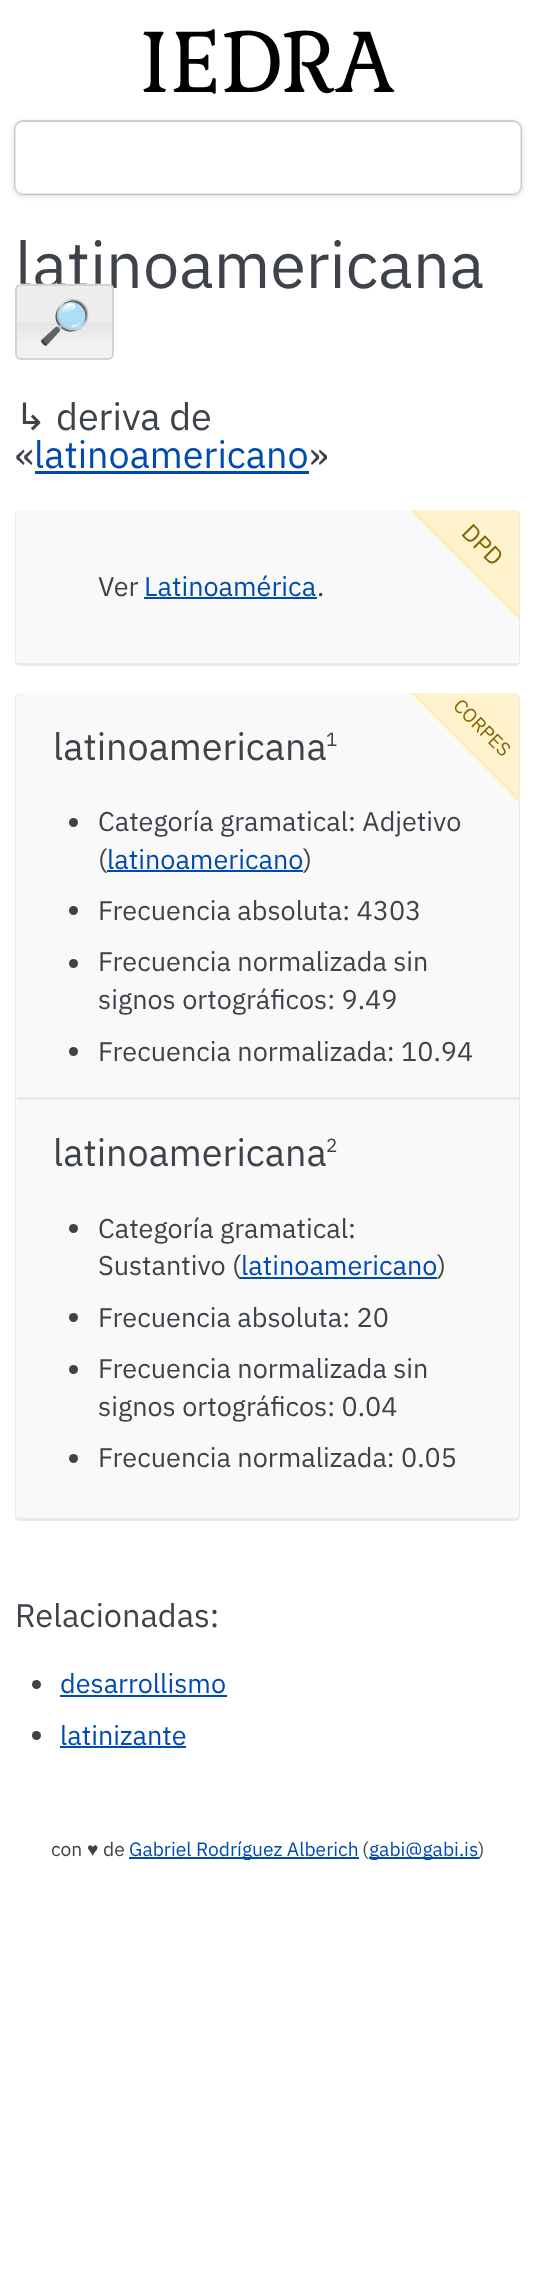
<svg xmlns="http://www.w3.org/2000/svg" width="535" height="2271">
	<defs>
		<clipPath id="clip1"><path d="M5 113H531V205H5ZM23 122H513C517.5 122 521 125.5 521 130V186C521 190.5 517.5 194 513 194H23C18.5 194 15 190.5 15 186V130C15 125.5 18.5 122 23 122Z" clip-rule="evenodd" /></clipPath>
	</defs>
	<rect width="100%" height="100%" fill="#FFFFFF" />
	<text x="140" y="92" font-family="Gabriela" font-size="84" fill="#000000">IEDRA</text>
	<rect x="15" y="121" width="506" height="73" rx="8" fill="none" stroke="#D9D9D9" stroke-width="2" />
	<g clip-path="url(#clip1)">
		<rect x="15" y="123" width="506" height="72" rx="8" fill="#0C0C0D" fill-opacity="0.2" filter="blur(3px)" />
	</g>
	<rect x="15" y="122" width="506" height="72" rx="8" fill="#FFFFFF" fill-opacity="0.4" />
	<text x="15" y="288" font-family="IBM Plex Sans" font-size="64.75" fill="#3E4349">latinoamericana</text>
	<image x="15" y="283" width="99" height="77" href="assets/img1.png" />
	<rect x="16" y="285" width="97" height="74" rx="5" fill="none" stroke="#D3D3D3" stroke-width="2" />
	<text x="38" y="337" font-family="Noto Color Emoji" font-size="43" font-weight="700" fill="#555555">🔎</text>
	<text x="15" y="430" font-family="DejaVu Sans" font-size="37.75" fill="#3E4349">↳</text>
	<g font-family="IBM Plex Sans" font-size="37.75" fill="#3E4349">
		<text x="56" y="430">deriva de</text>
		<text x="15" y="468">«</text>
	</g>
	<text x="34" y="468" font-family="IBM Plex Sans" font-size="37.75" fill="#004BAF">latinoamericano</text>
	<rect x="35" y="471" width="274" height="3" fill="#004BAF" />
	<text x="309" y="468" font-family="IBM Plex Sans" font-size="37.75" fill="#3E4349">»</text>
	<path d="M20 510H516C518 510 519 512 519 514V662C519 662 518 663 516 663H20C18 663 16 662 16 662V514C16 512 18 510 20 510Z" fill="#F9F9F9" />
	<path d="M20 510H516C518 510 520 512 520 514V662C520 664 518 666 516 666H20C17 666 15 664 15 662V514C15 512 17 510 20 510ZM20 510H516C518 510 519 512 519 514V662C519 662 518 663 516 663H20C18 663 16 662 16 662V514C16 512 18 510 20 510Z" fill="#EAEAEA" fill-rule="evenodd" />
	<path d="M519 619L410 510H516C518 510 519 512 519 514Z" fill="#FFF3CD" />
	<path d="M519 619L410 510H415L519 615Z" fill="#FFEEBA" />
	<text x="460" y="534" transform="rotate(45 460 534)" font-family="IBM Plex Sans" font-size="24" fill="#856404">DPD</text>
	<text x="98" y="596" font-family="IBM Plex Sans" font-size="27" fill="#3E4349">Ver</text>
	<text x="144" y="596" font-family="IBM Plex Sans" font-size="27" fill="#004BAF">Latinoamérica</text>
	<rect x="144" y="597" width="173" height="2" fill="#004BAF" />
	<text x="317" y="596" font-family="IBM Plex Sans" font-size="27" fill="#3E4349">.</text>
	<path d="M20 693H516C518 693 519 695 519 698V1516C519 1517 518 1518 516 1518H20C18 1518 16 1517 16 1516V698C16 695 18 693 20 693Z" fill="#F9F9F9" />
	<path d="M20 693H516C518 693 520 695 520 698V1516C520 1519 518 1521 516 1521H20C17 1521 15 1519 15 1516V698C15 695 17 693 20 693ZM20 693H516C518 693 519 695 519 698V1516C519 1517 518 1518 516 1518H20C18 1518 16 1517 16 1516V698C16 695 18 693 20 693Z" fill="#EAEAEA" fill-rule="evenodd" />
	<text x="53" y="760" font-family="IBM Plex Sans" font-size="37.75" fill="#3E4349">latinoamericana</text>
	<text x="326" y="746" font-family="IBM Plex Sans" font-size="19" fill="#3E4349">1</text>
	<circle cx="73.5" cy="822.5" r="4.5" fill="#3E4349" />
	<g font-family="IBM Plex Sans" font-size="27" fill="#3E4349">
		<text x="98" y="831">Categoría gramatical: Adjetivo</text>
		<text x="98" y="869">(</text>
	</g>
	<text x="107" y="869" font-family="IBM Plex Sans" font-size="27" fill="#004BAF">latinoamericano</text>
	<rect x="107" y="870" width="196" height="2" fill="#004BAF" />
	<text x="303" y="869" font-family="IBM Plex Sans" font-size="27" fill="#3E4349">)</text>
	<circle cx="73.5" cy="910.5" r="4.5" fill="#3E4349" />
	<text x="98" y="920" font-family="IBM Plex Sans" font-size="27" fill="#3E4349">Frecuencia absoluta: 4303</text>
	<circle cx="73.5" cy="963.5" r="4.5" fill="#3E4349" />
	<g font-family="IBM Plex Sans" font-size="27" fill="#3E4349">
		<text x="98" y="971">Frecuencia normalizada sin</text>
		<text x="98" y="1009">signos ortográficos: 9.49</text>
	</g>
	<circle cx="73.5" cy="1051.5" r="4.5" fill="#3E4349" />
	<text x="98" y="1061" font-family="IBM Plex Sans" font-size="27" fill="#3E4349">Frecuencia normalizada: 10.94</text>
	<path d="M519 802L411 693H516C518 693 519 695 519 698Z" fill="#FFF3CD" />
	<path d="M519 802L411 693H415L519 798Z" fill="#FFEEBA" />
	<text x="452" y="707" transform="rotate(45 452 707)" font-family="IBM Plex Sans" font-size="19.25" fill="#856404">CORPES</text>
	<rect x="17" y="1097" width="502" height="3" fill="#EAEAEA" />
	<text x="53" y="1166" font-family="IBM Plex Sans" font-size="37.75" fill="#3E4349">latinoamericana</text>
	<text x="326" y="1152" font-family="IBM Plex Sans" font-size="19" fill="#3E4349">2</text>
	<circle cx="73.5" cy="1228.5" r="4.5" fill="#3E4349" />
	<g font-family="IBM Plex Sans" font-size="27" fill="#3E4349">
		<text x="98" y="1238">Categoría gramatical:</text>
		<text x="98" y="1275">Sustantivo (</text>
	</g>
	<text x="241" y="1275" font-family="IBM Plex Sans" font-size="27" fill="#004BAF">latinoamericano</text>
	<rect x="240" y="1277" width="197" height="2" fill="#004BAF" />
	<text x="437" y="1275" font-family="IBM Plex Sans" font-size="27" fill="#3E4349">)</text>
	<circle cx="73.5" cy="1317.5" r="4.5" fill="#3E4349" />
	<text x="98" y="1327" font-family="IBM Plex Sans" font-size="27" fill="#3E4349">Frecuencia absoluta: 20</text>
	<circle cx="73.5" cy="1369.5" r="4.5" fill="#3E4349" />
	<g font-family="IBM Plex Sans" font-size="27" fill="#3E4349">
		<text x="98" y="1378">Frecuencia normalizada sin</text>
		<text x="98" y="1416">signos ortográficos: 0.04</text>
	</g>
	<circle cx="73.5" cy="1458.5" r="4.5" fill="#3E4349" />
	<text x="98" y="1467" font-family="IBM Plex Sans" font-size="27" fill="#3E4349">Frecuencia normalizada: 0.05</text>
	<text x="15" y="1627" font-family="IBM Plex Sans" font-size="32.5" fill="#3E4349">Relacionadas:</text>
	<circle cx="36.5" cy="1684.5" r="4.5" fill="#3E4349" />
	<text x="60" y="1693" font-family="IBM Plex Sans" font-size="27" fill="#004BAF">desarrollismo</text>
	<rect x="60" y="1695" width="167" height="2" fill="#004BAF" />
	<circle cx="36.5" cy="1735.5" r="4.5" fill="#3E4349" />
	<text x="60" y="1745" font-family="IBM Plex Sans" font-size="27" fill="#004BAF">latinizante</text>
	<rect x="60" y="1746" width="126" height="2" fill="#004BAF" />
	<text x="51" y="1856" font-family="IBM Plex Sans" font-size="19.25" fill="#3E4349">con</text>
	<text x="87" y="1856" font-family="Liberation Sans" font-size="19.25" fill="#3E4349">♥</text>
	<text x="103" y="1856" font-family="IBM Plex Sans" font-size="19.25" fill="#3E4349">de</text>
	<rect x="129" y="1857" width="230" height="2" fill="#004BAF" />
	<text x="129" y="1856" font-family="IBM Plex Sans" font-size="19.25" fill="#004BAF">Gabriel Rodríguez Alberich</text>
	<text x="362" y="1856" font-family="IBM Plex Sans" font-size="19.25" fill="#3E4349">(</text>
	<rect x="369" y="1857" width="110" height="2" fill="#004BAF" />
	<text x="369" y="1856" font-family="IBM Plex Sans" font-size="19.25" fill="#004BAF">gabi@gabi.is</text>
	<text x="478" y="1856" font-family="IBM Plex Sans" font-size="19.25" fill="#3E4349">)</text>
</svg>
